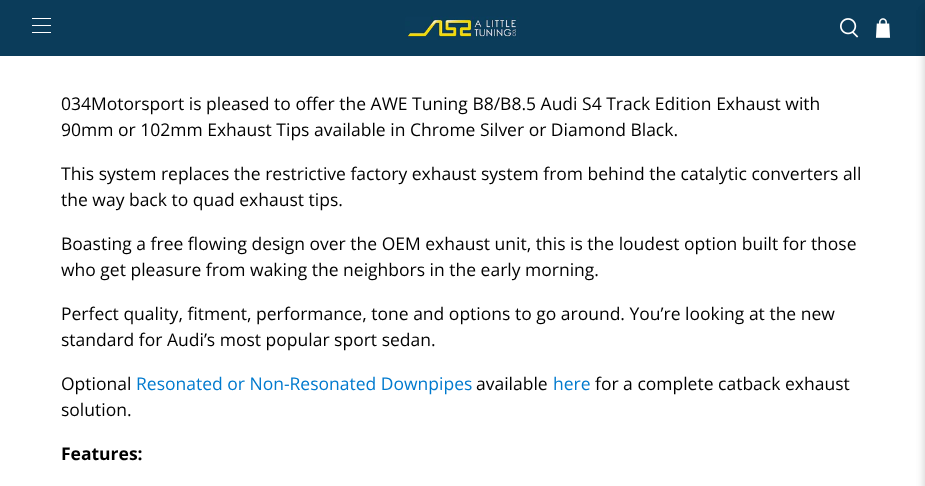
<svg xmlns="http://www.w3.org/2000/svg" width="925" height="486">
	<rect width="100%" height="100%" fill="#FFFFFF" />
	<rect x="0" y="0" width="925" height="56" fill="#0B3C5A" />
	<rect x="32" y="18" width="19" height="1" fill="#FFFFFF" />
	<rect x="32" y="25" width="19" height="1" fill="#FFFFFF" />
	<rect x="32" y="32" width="19" height="1" fill="#FFFFFF" />
	<image x="405" y="16" width="114" height="24" href="assets/img1.png" />
	<image x="840" y="18" width="19" height="20" href="assets/img2.png" />
	<image x="875" y="18" width="16" height="20" href="assets/img3.png" />
	<rect x="925" y="10" width="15" height="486" fill="#0A0A0A" fill-opacity="0.1" filter="blur(5px)" />
	<g font-family="Open Sans" font-size="17.5" fill="#000000">
		<text x="61" y="110">034Motorsport is pleased to offer the AWE Tuning B8/B8.5 Audi S4 Track Edition Exhaust with</text>
		<text x="61" y="136">90mm or 102mm Exhaust Tips available in Chrome Silver or Diamond Black.</text>
		<text x="61" y="180">This system replaces the restrictive factory exhaust system from behind the catalytic converters all</text>
		<text x="61" y="206">the way back to quad exhaust tips.</text>
		<text x="61" y="250">Boasting a free flowing design over the OEM exhaust unit, this is the loudest option built for those</text>
		<text x="61" y="276">who get pleasure from waking the neighbors in the early morning.</text>
		<text x="61" y="320">Perfect quality, fitment, performance, tone and options to go around. You’re looking at the new</text>
		<text x="61" y="346">standard for Audi’s most popular sport sedan.</text>
		<text x="61" y="390">Optional</text>
	</g>
	<text x="136" y="390" font-family="Open Sans" font-size="17.5" fill="#007ACE">Resonated or Non-Resonated Downpipes</text>
	<text x="476" y="390" font-family="Open Sans" font-size="17.5" fill="#000000">available</text>
	<text x="553" y="390" font-family="Open Sans" font-size="17.5" fill="#007ACE">here</text>
	<g font-family="Open Sans" font-size="17.5" fill="#000000">
		<text x="595" y="390">for a complete catback exhaust</text>
		<text x="61" y="416">solution.</text>
	</g>
	<text x="61" y="460" font-family="Open Sans" font-size="17.5" font-weight="700" fill="#000000">Features:</text>
	<rect x="925" y="10" width="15" height="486" fill="#0A0A0A" fill-opacity="0.1" filter="blur(5px)" />
</svg>
